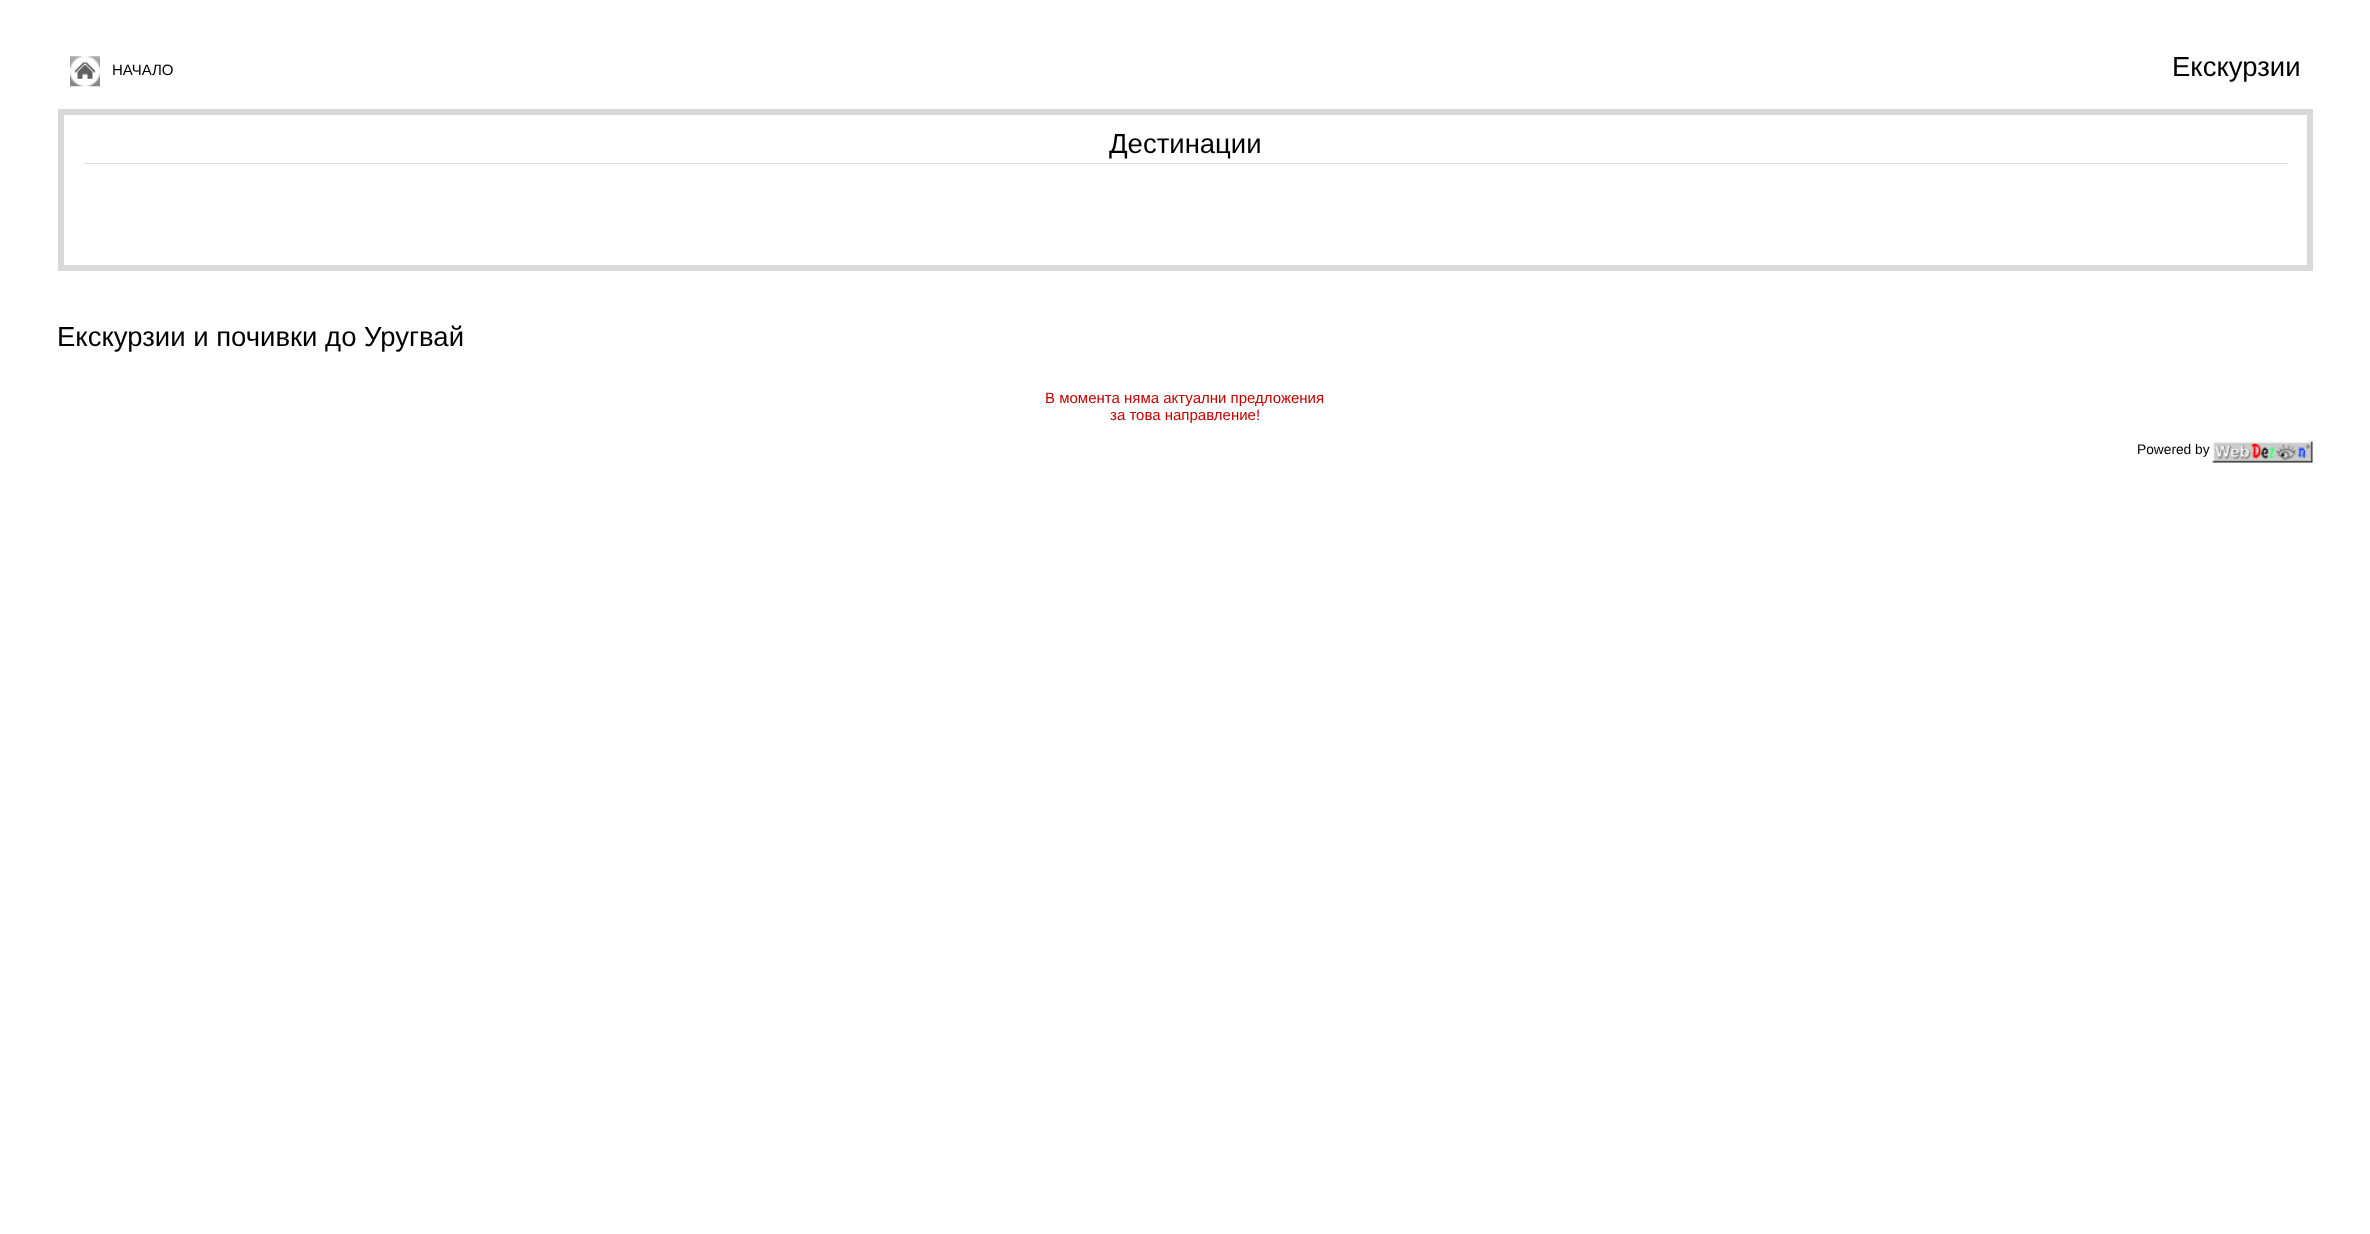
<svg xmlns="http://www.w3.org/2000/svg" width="2370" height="1234">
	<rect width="100%" height="100%" fill="#FFFFFF" />
	<image x="70" y="56" width="30" height="31" href="assets/img1.png" />
	<text x="112" y="75" font-family="Liberation Sans" font-size="15" fill="#000000">НАЧАЛО</text>
	<text x="2172" y="76" font-family="Liberation Sans" font-size="27.5" fill="#000000">Екскурзии</text>
	<rect x="61" y="112" width="2249" height="156" fill="none" stroke="#D9D9D9" stroke-width="6" />
	<text x="1109" y="153" font-family="Liberation Sans" font-size="27.5" fill="#000000">Дестинации</text>
	<rect x="83" y="163" width="2205" height="1" fill="#DDDDDD" />
	<text x="57" y="346" font-family="Liberation Sans" font-size="27.5" fill="#000000">Екскурзии и почивки до Уругвай</text>
	<g font-family="Liberation Sans" font-size="15" fill="#C00000">
		<text x="1045" y="403">В момента няма актуални предложения</text>
		<text x="1110" y="420">за това направление!</text>
	</g>
	<text x="2137" y="454" font-family="Liberation Sans" font-size="13.75" fill="#000000">Powered by</text>
	<image x="2212" y="441" width="101" height="22" href="assets/img2.png" />
</svg>
